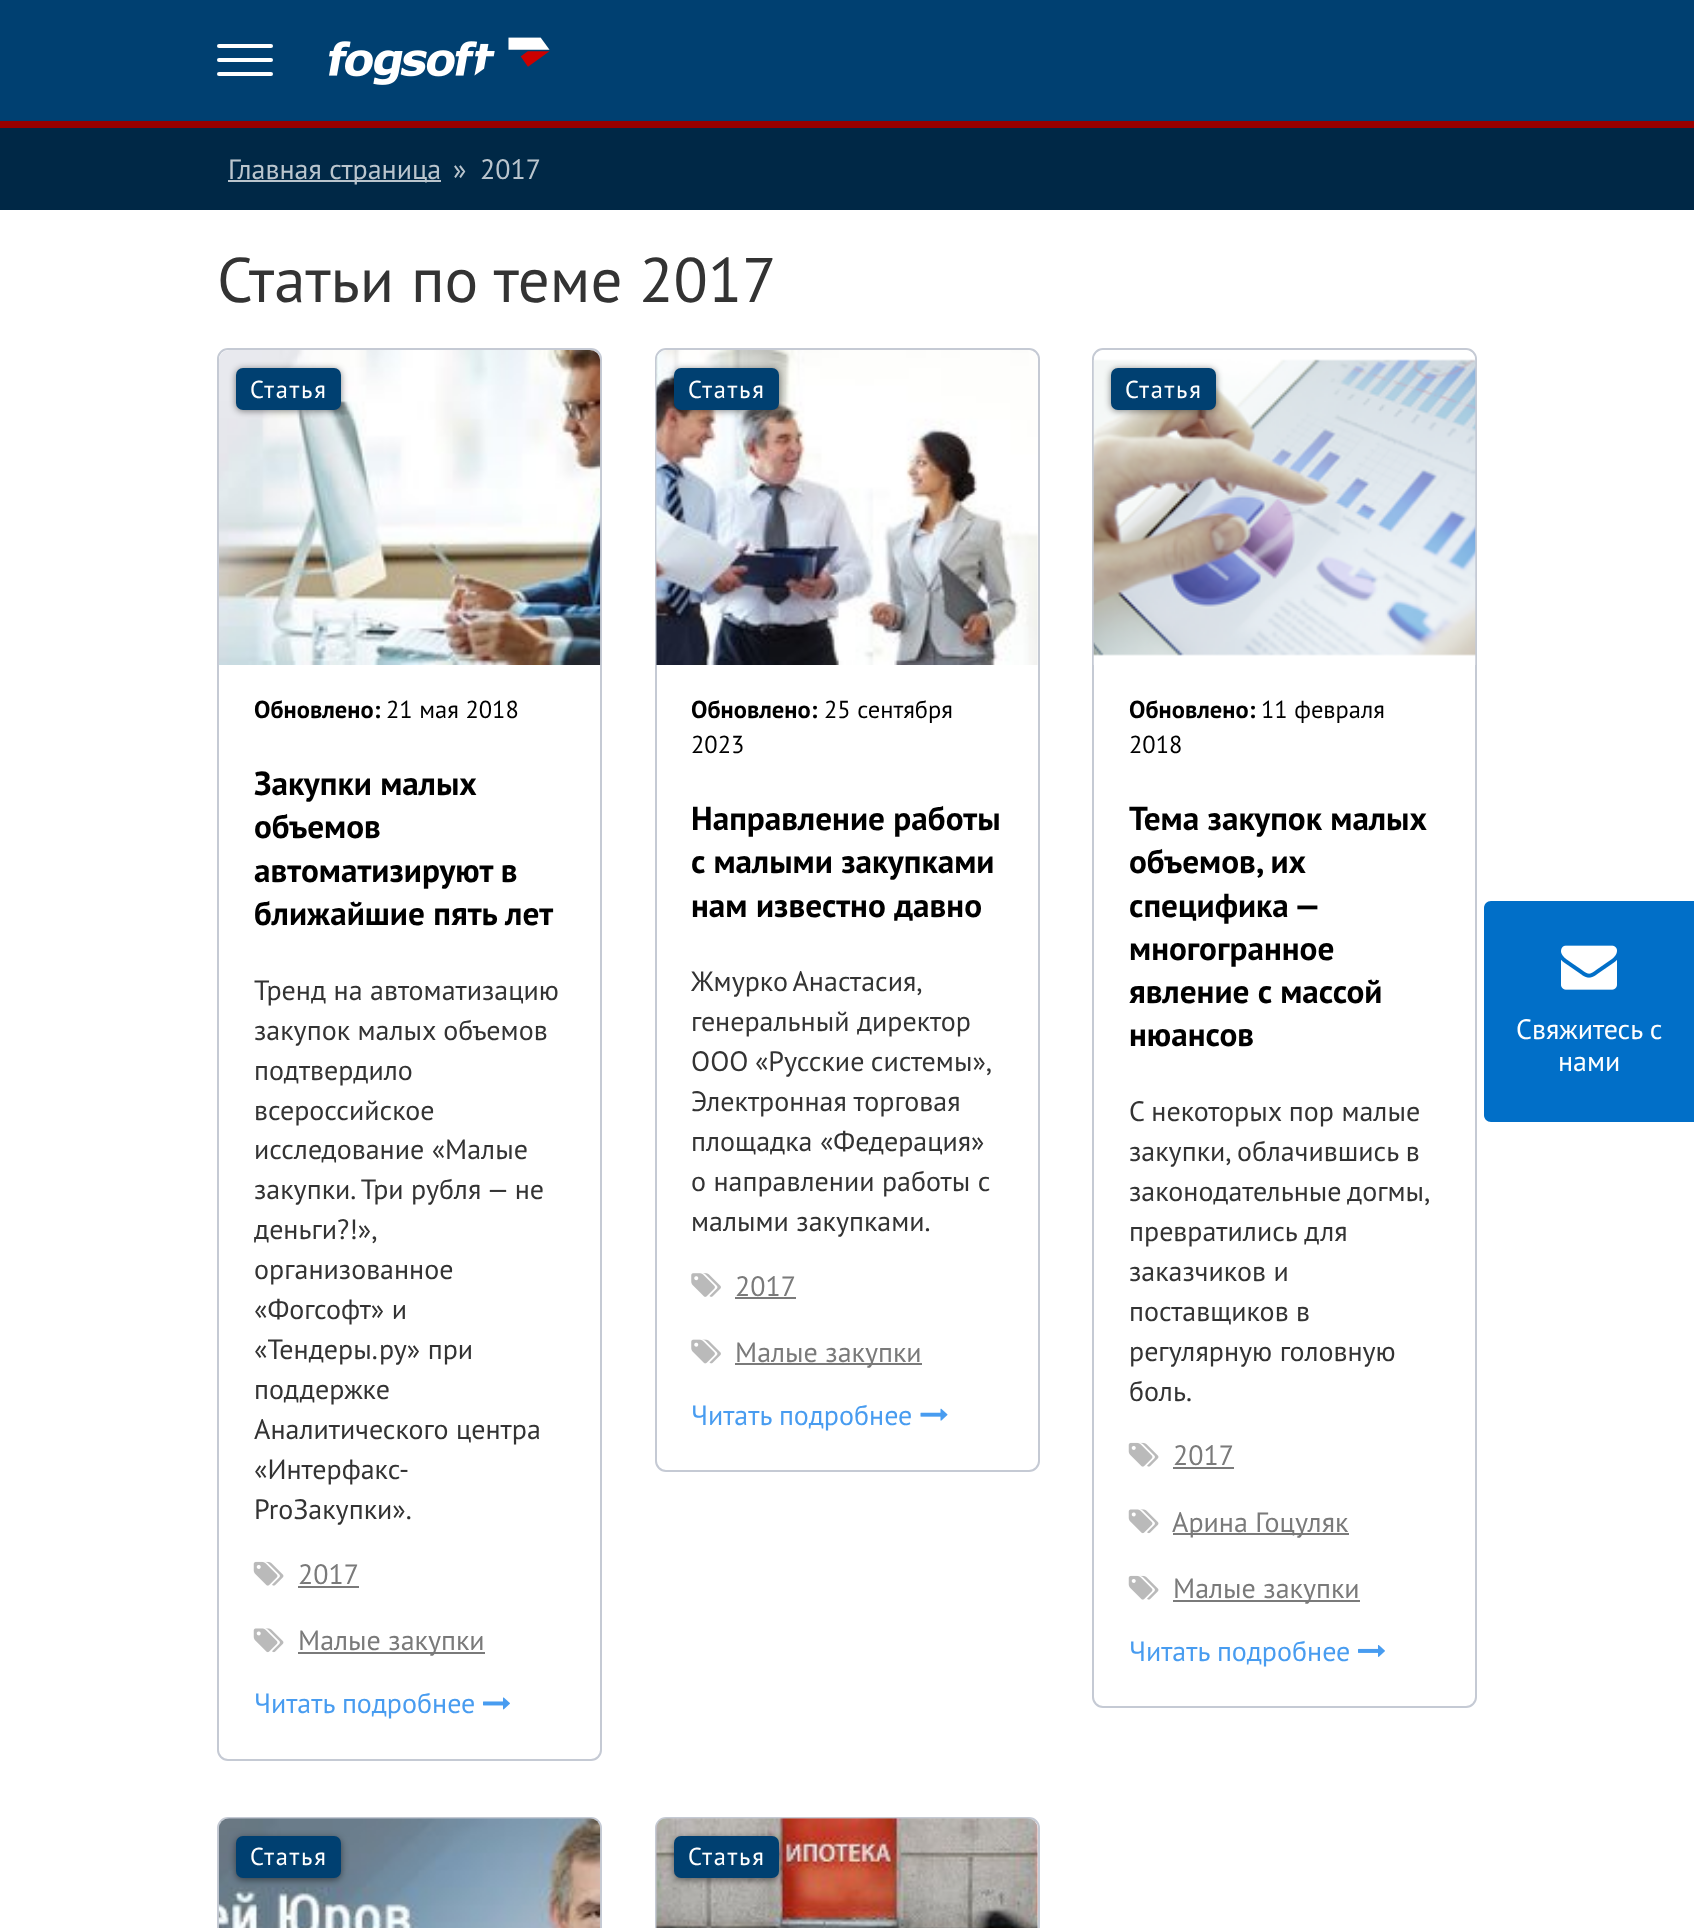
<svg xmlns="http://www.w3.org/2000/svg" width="1694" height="1928">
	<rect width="100%" height="100%" fill="#FFFFFF" />
	<rect x="0" y="0" width="1694" height="121" fill="#004071" />
	<rect x="0" y="121" width="1694" height="7" fill="#990000" />
	<rect x="217" y="44" width="56" height="4" rx="2" fill="#FFFFFF" />
	<rect x="217" y="58" width="56" height="4" rx="2" fill="#FFFFFF" />
	<rect x="217" y="72" width="56" height="4" rx="2" fill="#FFFFFF" />
	<image x="329" y="37" width="221" height="48" href="assets/img1.png" />
	<rect x="0" y="128" width="1694" height="82" fill="#002846" />
	<rect x="228" y="180" width="213" height="2" fill="#BAC5CD" />
	<g font-family="PT Sans" font-size="28" fill="#BAC5CD">
		<text x="228" y="179">Главная страница</text>
		<text x="453" y="179">»</text>
		<text x="480" y="179">2017</text>
	</g>
	<text x="217" y="302" font-family="PT Sans" font-size="63" fill="#333333">Статьи по теме 2017</text>
	<rect x="218" y="349" width="383" height="1411" rx="10" fill="none" stroke="#C5CAD4" stroke-width="2" />
	<image x="219" y="350" width="382" height="315" href="assets/img2.png" />
	<rect x="236" y="369" width="105" height="42" rx="7" fill="#000000" fill-opacity="0.48" filter="blur(3.5px)" />
	<rect x="236" y="368" width="105" height="42" rx="7" fill="#004071" />
	<text x="250" y="398" font-family="PT Sans" font-size="24.5" letter-spacing="1.75" fill="#FFFFFF">Статья</text>
	<text x="254" y="718" font-family="PT Sans" font-size="24.5" font-weight="700" fill="#000000">Обновлено:</text>
	<text x="386" y="718" font-family="PT Sans" font-size="24.5" fill="#000000">21 мая 2018</text>
	<g font-family="PT Sans" font-size="33.25" font-weight="700" fill="#000000">
		<text x="254" y="795">Закупки малых</text>
		<text x="254" y="838">объемов</text>
		<text x="254" y="882">автоматизируют в</text>
		<text x="254" y="925">ближайшие пять лет</text>
	</g>
	<g font-family="PT Sans" font-size="28" fill="#333333">
		<text x="254" y="1000">Тренд на автоматизацию</text>
		<text x="254" y="1040">закупок малых объемов</text>
		<text x="254" y="1080">подтвердило</text>
		<text x="254" y="1120">всероссийское</text>
		<text x="254" y="1159">исследование «Малые</text>
		<text x="254" y="1199">закупки. Три рубля — не</text>
		<text x="254" y="1239">деньги?!»,</text>
		<text x="254" y="1279">организованное</text>
		<text x="254" y="1319">«Фогсофт» и</text>
		<text x="254" y="1359">«Тендеры.ру» при</text>
		<text x="254" y="1399">поддержке</text>
		<text x="254" y="1439">Аналитического центра</text>
		<text x="254" y="1479">«Интерфакс-</text>
		<text x="254" y="1519">ProЗакупки».</text>
	</g>
	<image x="253" y="1561" width="31" height="25" href="assets/img3.png" />
	<text x="298" y="1584" font-family="PT Sans" font-size="28" fill="#7A7A7A">2017</text>
	<rect x="298" y="1586" width="61" height="2" fill="#7A7A7A" />
	<image x="253" y="1628" width="31" height="25" href="assets/img4.png" />
	<rect x="298" y="1652" width="187" height="2" fill="#7A7A7A" />
	<text x="298" y="1650" font-family="PT Sans" font-size="28" fill="#7A7A7A">Малые закупки</text>
	<text x="254" y="1713" font-family="PT Sans" font-size="28" fill="#489CF0">Читать подробнее</text>
	<image x="483" y="1697" width="27" height="13" href="assets/img5.png" />
	<rect x="656" y="349" width="383" height="1122" rx="10" fill="none" stroke="#C5CAD4" stroke-width="2" />
	<image x="656" y="350" width="382" height="315" href="assets/img6.png" />
	<rect x="674" y="369" width="105" height="42" rx="7" fill="#000000" fill-opacity="0.48" filter="blur(3.5px)" />
	<rect x="674" y="368" width="105" height="42" rx="7" fill="#004071" />
	<text x="688" y="398" font-family="PT Sans" font-size="24.5" letter-spacing="1.75" fill="#FFFFFF">Статья</text>
	<text x="691" y="718" font-family="PT Sans" font-size="24.5" font-weight="700" fill="#000000">Обновлено:</text>
	<g font-family="PT Sans" font-size="24.5" fill="#000000">
		<text x="824" y="718">25 сентября</text>
		<text x="691" y="753">2023</text>
	</g>
	<g font-family="PT Sans" font-size="33.25" font-weight="700" fill="#000000">
		<text x="691" y="830">Направление работы</text>
		<text x="691" y="873">с малыми закупками</text>
		<text x="691" y="917">нам известно давно</text>
	</g>
	<g font-family="PT Sans" font-size="28" fill="#333333">
		<text x="691" y="991" word-spacing="-2">Жмурко Анастасия,</text>
		<text x="691" y="1031">генеральный директор</text>
		<text x="691" y="1071" word-spacing="-1">ООО «Русские системы»,</text>
		<text x="691" y="1111">Электронная торговая</text>
		<text x="691" y="1151">площадка «Федерация»</text>
		<text x="691" y="1191">о направлении работы с</text>
		<text x="691" y="1231">малыми закупками.</text>
	</g>
	<image x="691" y="1273" width="30" height="24" href="assets/img7.png" />
	<text x="735" y="1296" font-family="PT Sans" font-size="28" fill="#7A7A7A">2017</text>
	<rect x="735" y="1297" width="61" height="2" fill="#7A7A7A" />
	<image x="691" y="1339" width="30" height="25" href="assets/img8.png" />
	<rect x="735" y="1363" width="187" height="2" fill="#7A7A7A" />
	<text x="735" y="1362" font-family="PT Sans" font-size="28" fill="#7A7A7A">Малые закупки</text>
	<text x="691" y="1425" font-family="PT Sans" font-size="28" fill="#489CF0">Читать подробнее</text>
	<image x="920" y="1408" width="28" height="13" href="assets/img9.png" />
	<rect x="1093" y="349" width="383" height="1358" rx="10" fill="none" stroke="#C5CAD4" stroke-width="2" />
	<image x="1093" y="350" width="383" height="315" href="assets/img10.png" />
	<rect x="1111" y="369" width="105" height="42" rx="7" fill="#000000" fill-opacity="0.48" filter="blur(3.5px)" />
	<rect x="1111" y="368" width="105" height="42" rx="7" fill="#004071" />
	<text x="1125" y="398" font-family="PT Sans" font-size="24.5" letter-spacing="1.75" fill="#FFFFFF">Статья</text>
	<text x="1129" y="718" font-family="PT Sans" font-size="24.5" font-weight="700" fill="#000000">Обновлено:</text>
	<g font-family="PT Sans" font-size="24.5" fill="#000000">
		<text x="1261" y="718">11 февраля</text>
		<text x="1129" y="753">2018</text>
	</g>
	<g font-family="PT Sans" font-size="33.25" font-weight="700" fill="#000000">
		<text x="1129" y="830">Тема закупок малых</text>
		<text x="1129" y="873">объемов, их</text>
		<text x="1129" y="917" word-spacing="-2">специфика —</text>
		<text x="1129" y="960">многогранное</text>
		<text x="1129" y="1003">явление с массой</text>
		<text x="1129" y="1046">нюансов</text>
	</g>
	<g font-family="PT Sans" font-size="28" fill="#333333">
		<text x="1129" y="1121">С некоторых пор малые</text>
		<text x="1129" y="1161">закупки, облачившись в</text>
		<text x="1129" y="1201" word-spacing="-2">законодательные догмы,</text>
		<text x="1129" y="1241">превратились для</text>
		<text x="1129" y="1281">заказчиков и</text>
		<text x="1129" y="1321">поставщиков в</text>
		<text x="1129" y="1361">регулярную головную</text>
		<text x="1129" y="1401">боль.</text>
	</g>
	<image x="1128" y="1442" width="31" height="25" href="assets/img3.png" />
	<text x="1173" y="1465" font-family="PT Sans" font-size="28" fill="#7A7A7A">2017</text>
	<rect x="1173" y="1467" width="61" height="2" fill="#7A7A7A" />
	<image x="1128" y="1509" width="31" height="25" href="assets/img4.png" />
	<rect x="1173" y="1533" width="176" height="2" fill="#7A7A7A" />
	<text x="1172" y="1532" font-family="PT Sans" font-size="28" fill="#7A7A7A">Арина Гоцуляк</text>
	<image x="1128" y="1575" width="31" height="25" href="assets/img3.png" />
	<rect x="1173" y="1600" width="187" height="2" fill="#7A7A7A" />
	<text x="1173" y="1598" font-family="PT Sans" font-size="28" fill="#7A7A7A">Малые закупки</text>
	<text x="1129" y="1661" font-family="PT Sans" font-size="28" fill="#489CF0">Читать подробнее</text>
	<image x="1358" y="1645" width="27" height="12" href="assets/img11.png" />
	<rect x="218" y="1818" width="383" height="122" rx="10" fill="none" stroke="#C5CAD4" stroke-width="2" />
	<image x="218" y="1818" width="383" height="110" href="assets/img12.png" />
	<rect x="236" y="1838" width="105" height="42" rx="7" fill="#000000" fill-opacity="0.48" filter="blur(3.5px)" />
	<rect x="236" y="1836" width="105" height="42" rx="7" fill="#004071" />
	<text x="250" y="1865" font-family="PT Sans" font-size="24.5" letter-spacing="1.75" fill="#FFFFFF">Статья</text>
	<rect x="656" y="1818" width="383" height="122" rx="10" fill="none" stroke="#C5CAD4" stroke-width="2" />
	<image x="656" y="1818" width="382" height="110" href="assets/img13.png" />
	<rect x="674" y="1838" width="105" height="42" rx="7" fill="#000000" fill-opacity="0.48" filter="blur(3.5px)" />
	<rect x="674" y="1836" width="105" height="42" rx="7" fill="#004071" />
	<text x="688" y="1865" font-family="PT Sans" font-size="24.5" letter-spacing="1.75" fill="#FFFFFF">Статья</text>
	<path d="M1491 901H1694V1122H1491C1487 1122 1484 1119 1484 1115V908C1484 904 1487 901 1491 901Z" fill="#016FC8" />
	<image x="1561" y="945" width="56" height="45" href="assets/img14.png" />
	<g font-family="PT Sans" font-size="28" fill="#FFFFFF">
		<text x="1516" y="1039">Cвяжитесь с</text>
		<text x="1558" y="1071">нами</text>
	</g>
</svg>
